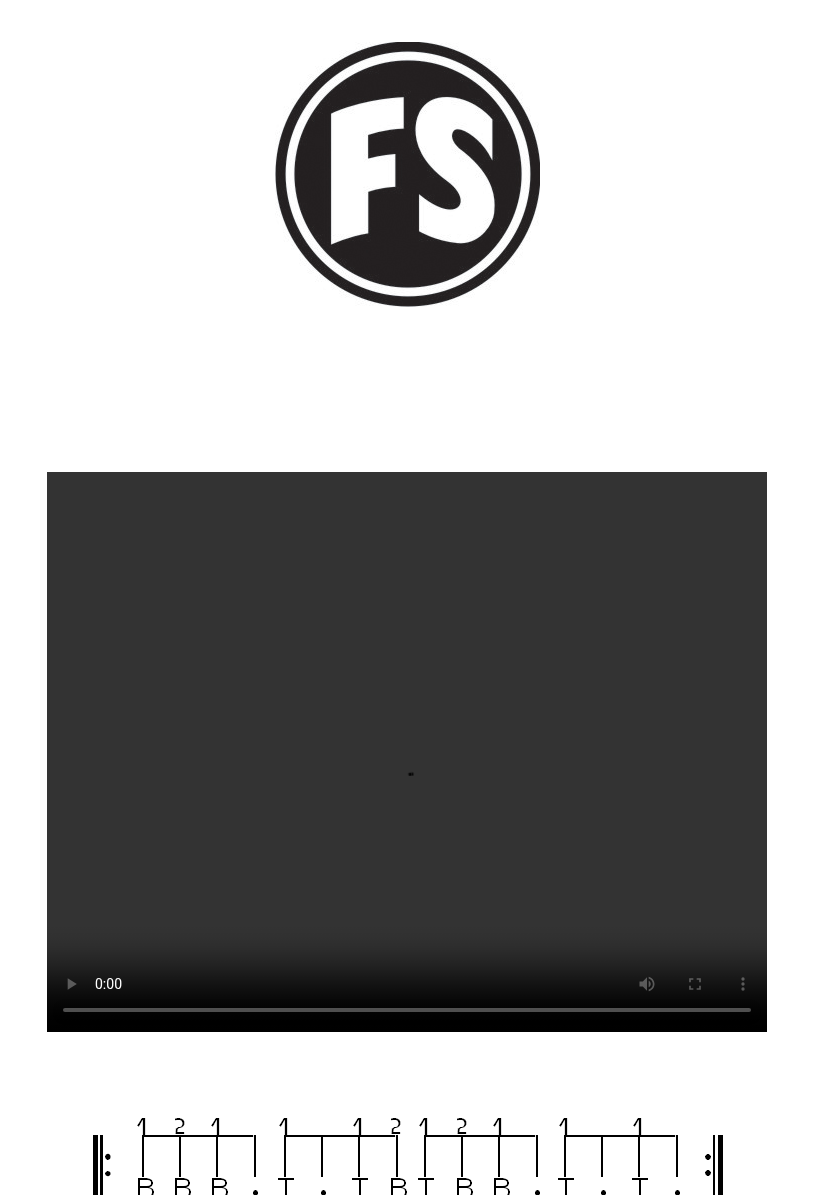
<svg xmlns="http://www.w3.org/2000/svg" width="814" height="1195">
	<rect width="100%" height="100%" fill="#FFFFFF" />
	<image x="275" y="42" width="265" height="265" href="assets/img1.png" />
	<image x="47" y="472" width="720" height="560" href="assets/img2.png" />
	<image x="93" y="1118" width="630" height="77" href="assets/img3.png" />
</svg>
